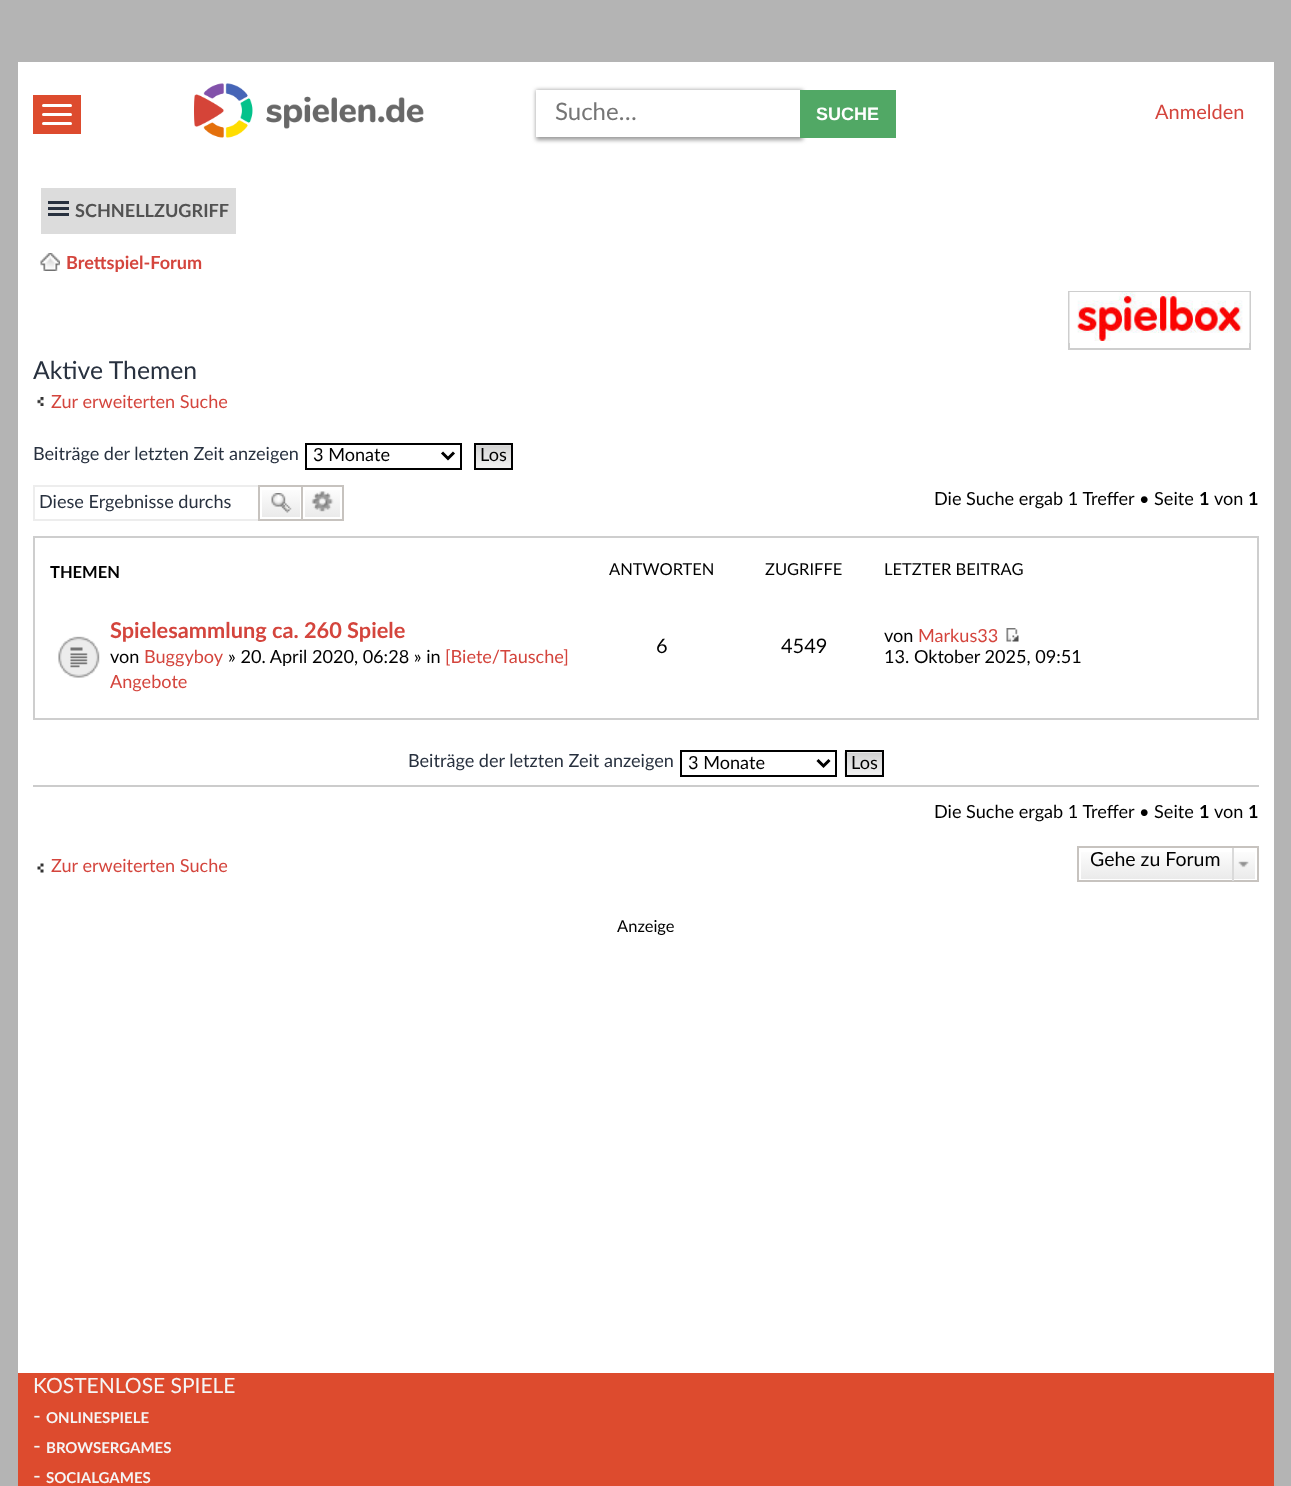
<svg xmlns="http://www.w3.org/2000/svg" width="1291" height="1486">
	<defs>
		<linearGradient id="g1" gradientUnits="userSpaceOnUse" x1="281" y1="486" x2="281" y2="519"><stop offset="0" stop-color="#FFFFFF" /><stop offset="1" stop-color="#E9E9E9" /></linearGradient>
		<linearGradient id="g2" gradientUnits="userSpaceOnUse" x1="323" y1="486" x2="323" y2="519"><stop offset="0" stop-color="#FFFFFF" /><stop offset="1" stop-color="#E9E9E9" /></linearGradient>
		<linearGradient id="g3" gradientUnits="userSpaceOnUse" x1="1168" y1="848" x2="1168" y2="881"><stop offset="0" stop-color="#FFFFFF" /><stop offset="1" stop-color="#E9E9E9" /></linearGradient>
	</defs>
	<rect width="100%" height="100%" fill="#B4B4B4" />
	<rect x="18" y="62" width="1256" height="1311" fill="#FFFFFF" />
	<rect x="33" y="95" width="48" height="39" fill="#DD4B2E" />
	<rect x="42" y="104" width="30" height="3" rx="1.5" fill="#FFFFFF" />
	<rect x="42" y="113" width="30" height="3" rx="1.5" fill="#FFFFFF" />
	<rect x="42" y="122" width="30" height="3" rx="1.5" fill="#FFFFFF" />
	<image x="194" y="83" width="230" height="55" href="assets/img1.png" />
	<rect x="536" y="90" width="267" height="50" fill="#999999" filter="blur(2px)" />
	<rect x="536" y="90" width="264" height="47" fill="#FFFFFF" />
	<text x="555" y="120" font-family="Lato" font-size="24" fill="#757575">Suche…</text>
	<rect x="800" y="90" width="96" height="48" fill="#51A865" />
	<text x="816" y="120" font-family="Liberation Sans" font-size="18" font-weight="700" fill="#FFFFFF">SUCHE</text>
	<text x="1155" y="119" font-family="Lato" font-size="20" fill="#D4453D">Anmelden</text>
	<rect x="41" y="188" width="195" height="46" fill="#DCDCDC" />
	<rect x="48" y="201" width="21" height="3" fill="#28313F" />
	<rect x="48" y="207" width="21" height="3" fill="#28313F" />
	<rect x="48" y="213" width="21" height="3" fill="#28313F" />
	<text x="75" y="217" font-family="Lato" font-size="18.1" font-weight="700" fill="#525252">SCHNELLZUGRIFF</text>
	<image x="40" y="253" width="20" height="18" href="assets/img2.png" />
	<text x="66" y="269" font-family="Lato" font-size="18.1" font-weight="700" fill="#D4453D">Brettspiel-Forum</text>
	<rect x="1069" y="292" width="181" height="57" fill="none" stroke="#CECECE" stroke-width="2" />
	<image x="1069" y="292" width="181" height="51" href="assets/img3.png" />
	<text x="33" y="379" font-family="Lato" font-size="24.75" fill="#28313F">Aktive Themen</text>
	<image x="37" y="397" width="7" height="9" href="assets/img4.png" />
	<text x="51" y="408" font-family="Lato" font-size="18.1" fill="#D4453D">Zur erweiterten Suche</text>
	<text x="33" y="460" font-family="Lato" font-size="18.1" fill="#28313F">Beiträge der letzten Zeit anzeigen</text>
	<rect x="306" y="444" width="155" height="25" fill="none" stroke="#000000" stroke-width="2" />
	<path d="M442 452.5L448 458.5L454 452.5" fill="none" stroke="#000000" stroke-width="3" />
	<text x="313" y="461" font-family="Lato" font-size="18.1" fill="#000000">3 Monate</text>
	<image x="476" y="445" width="35" height="23" href="assets/img5.png" />
	<rect x="475" y="444" width="37" height="25" fill="none" stroke="#000000" stroke-width="2" />
	<text x="480" y="461" font-family="Lato" font-size="18.1" fill="#000000">Los</text>
	<rect x="33" y="485" width="225" height="2" fill="#EDEDED" />
	<rect x="33" y="519" width="225" height="2" fill="#EDEDED" />
	<rect x="33" y="485" width="2" height="36" fill="#EDEDED" />
	<text x="39" y="508" font-family="Lato" font-size="18.1" fill="#28313F">Diese Ergebnisse durchs</text>
	<rect x="262" y="490" width="38" height="27" fill="url(#g1)" />
	<rect x="259" y="486" width="43" height="34" fill="none" stroke="#C7C3BF" stroke-width="2" />
	<image x="271" y="493" width="21" height="20" href="assets/img6.png" />
	<rect x="305" y="490" width="35" height="27" fill="url(#g2)" />
	<rect x="303" y="485" width="41" height="2" fill="#C7C3BF" />
	<rect x="342" y="485" width="2" height="36" fill="#C7C3BF" />
	<rect x="303" y="519" width="41" height="2" fill="#C7C3BF" />
	<image x="311" y="491" width="23" height="21" href="assets/img7.png" />
	<text x="934" y="505" font-family="Lato" font-size="18.1" fill="#000000">Die Suche ergab 1 Treffer • Seite</text>
	<text x="1199" y="505" font-family="Lato" font-size="18.1" font-weight="700" fill="#000000">1</text>
	<text x="1214" y="505" font-family="Lato" font-size="18.1" fill="#000000">von</text>
	<text x="1248" y="505" font-family="Lato" font-size="18.1" font-weight="700" fill="#000000">1</text>
	<rect x="34" y="537" width="1224" height="182" fill="none" stroke="#CECECE" stroke-width="2" />
	<text x="50" y="578" font-family="Lato" font-size="16.5" font-weight="700" fill="#000000">THEMEN</text>
	<g font-family="Lato" font-size="16.5" fill="#000000">
		<text x="609" y="575">ANTWORTEN</text>
		<text x="765" y="575">ZUGRIFFE</text>
		<text x="884" y="575">LETZTER BEITRAG</text>
	</g>
	<image x="58" y="636" width="42" height="42" href="assets/img8.png" />
	<text x="110" y="638" font-family="Lato" font-size="21.75" font-weight="700" fill="#D4453D">Spielesammlung ca. 260 Spiele</text>
	<text x="110" y="663" font-family="Lato" font-size="18.1" fill="#000000">von</text>
	<text x="144" y="663" font-family="Lato" font-size="18.1" fill="#D4453D">Buggyboy</text>
	<text x="228" y="663" font-family="Lato" font-size="18.1" fill="#000000">» 20. April 2020, 06:28 » in</text>
	<g font-family="Lato" font-size="18.1" fill="#D4453D">
		<text x="445" y="663">[Biete/Tausche]</text>
		<text x="110" y="688">Angebote</text>
	</g>
	<g font-family="Lato" font-size="20" fill="#000000">
		<text x="656" y="653">6</text>
		<text x="781" y="653">4549</text>
	</g>
	<text x="884" y="642" font-family="Lato" font-size="18.1" fill="#000000">von</text>
	<text x="918" y="642" font-family="Lato" font-size="18.1" fill="#D4453D">Markus33</text>
	<image x="1006" y="628" width="13" height="14" href="assets/img9.png" />
	<text x="884" y="663" font-family="Lato" font-size="18.1" fill="#000000">13. Oktober 2025, 09:51</text>
	<text x="408" y="767" font-family="Lato" font-size="18.1" fill="#28313F">Beiträge der letzten Zeit anzeigen</text>
	<rect x="681" y="751" width="155" height="25" fill="none" stroke="#000000" stroke-width="2" />
	<path d="M817.5 760L823.5 766L829.5 760" fill="none" stroke="#000000" stroke-width="3" />
	<text x="688" y="769" font-family="Lato" font-size="18.1" fill="#000000">3 Monate</text>
	<image x="844" y="752" width="38" height="25" href="assets/img10.png" />
	<rect x="846" y="751" width="37" height="25" fill="none" stroke="#000000" stroke-width="2" />
	<text x="851" y="769" font-family="Lato" font-size="18.1" fill="#000000">Los</text>
	<rect x="33" y="785" width="1226" height="2" fill="#CCCCCC" />
	<text x="934" y="818" font-family="Lato" font-size="18.1" fill="#000000">Die Suche ergab 1 Treffer • Seite</text>
	<text x="1199" y="818" font-family="Lato" font-size="18.1" font-weight="700" fill="#000000">1</text>
	<text x="1214" y="818" font-family="Lato" font-size="18.1" fill="#000000">von</text>
	<text x="1248" y="818" font-family="Lato" font-size="18.1" font-weight="700" fill="#000000">1</text>
	<image x="37" y="863" width="7" height="10" href="assets/img11.png" />
	<text x="51" y="872" font-family="Lato" font-size="18.1" fill="#D4453D">Zur erweiterten Suche</text>
	<rect x="1081" y="852" width="174" height="27" fill="url(#g3)" />
	<rect x="1078" y="847" width="180" height="34" fill="none" stroke="#C7C3BF" stroke-width="2" />
	<text x="1090" y="866" font-family="Lato" font-size="19.5" fill="#000000">Gehe zu Forum</text>
	<image x="1238" y="861" width="11" height="7" href="assets/img12.png" />
	<rect x="1232" y="848" width="2" height="33" fill="#DADADA" />
	<text x="617" y="932" font-family="Lato" font-size="16.5" fill="#000000">Anzeige</text>
	<rect x="18" y="1373" width="1256" height="113" fill="#DD4B2E" />
	<g font-family="Lato" font-size="21" fill="#F5F5F5">
		<text x="33" y="1393">KOSTENLOSE SPIELE</text>
		<text x="33" y="1423">-</text>
	</g>
	<text x="46" y="1423" font-family="Lato" font-size="15" font-weight="700" fill="#F5F5F5">ONLINESPIELE</text>
	<text x="33" y="1453" font-family="Lato" font-size="21" fill="#F5F5F5">-</text>
	<text x="46" y="1453" font-family="Lato" font-size="15" font-weight="700" fill="#F5F5F5">BROWSERGAMES</text>
	<text x="33" y="1483" font-family="Lato" font-size="21" fill="#F5F5F5">-</text>
	<text x="46" y="1483" font-family="Lato" font-size="15" font-weight="700" fill="#F5F5F5">SOCIALGAMES</text>
</svg>
